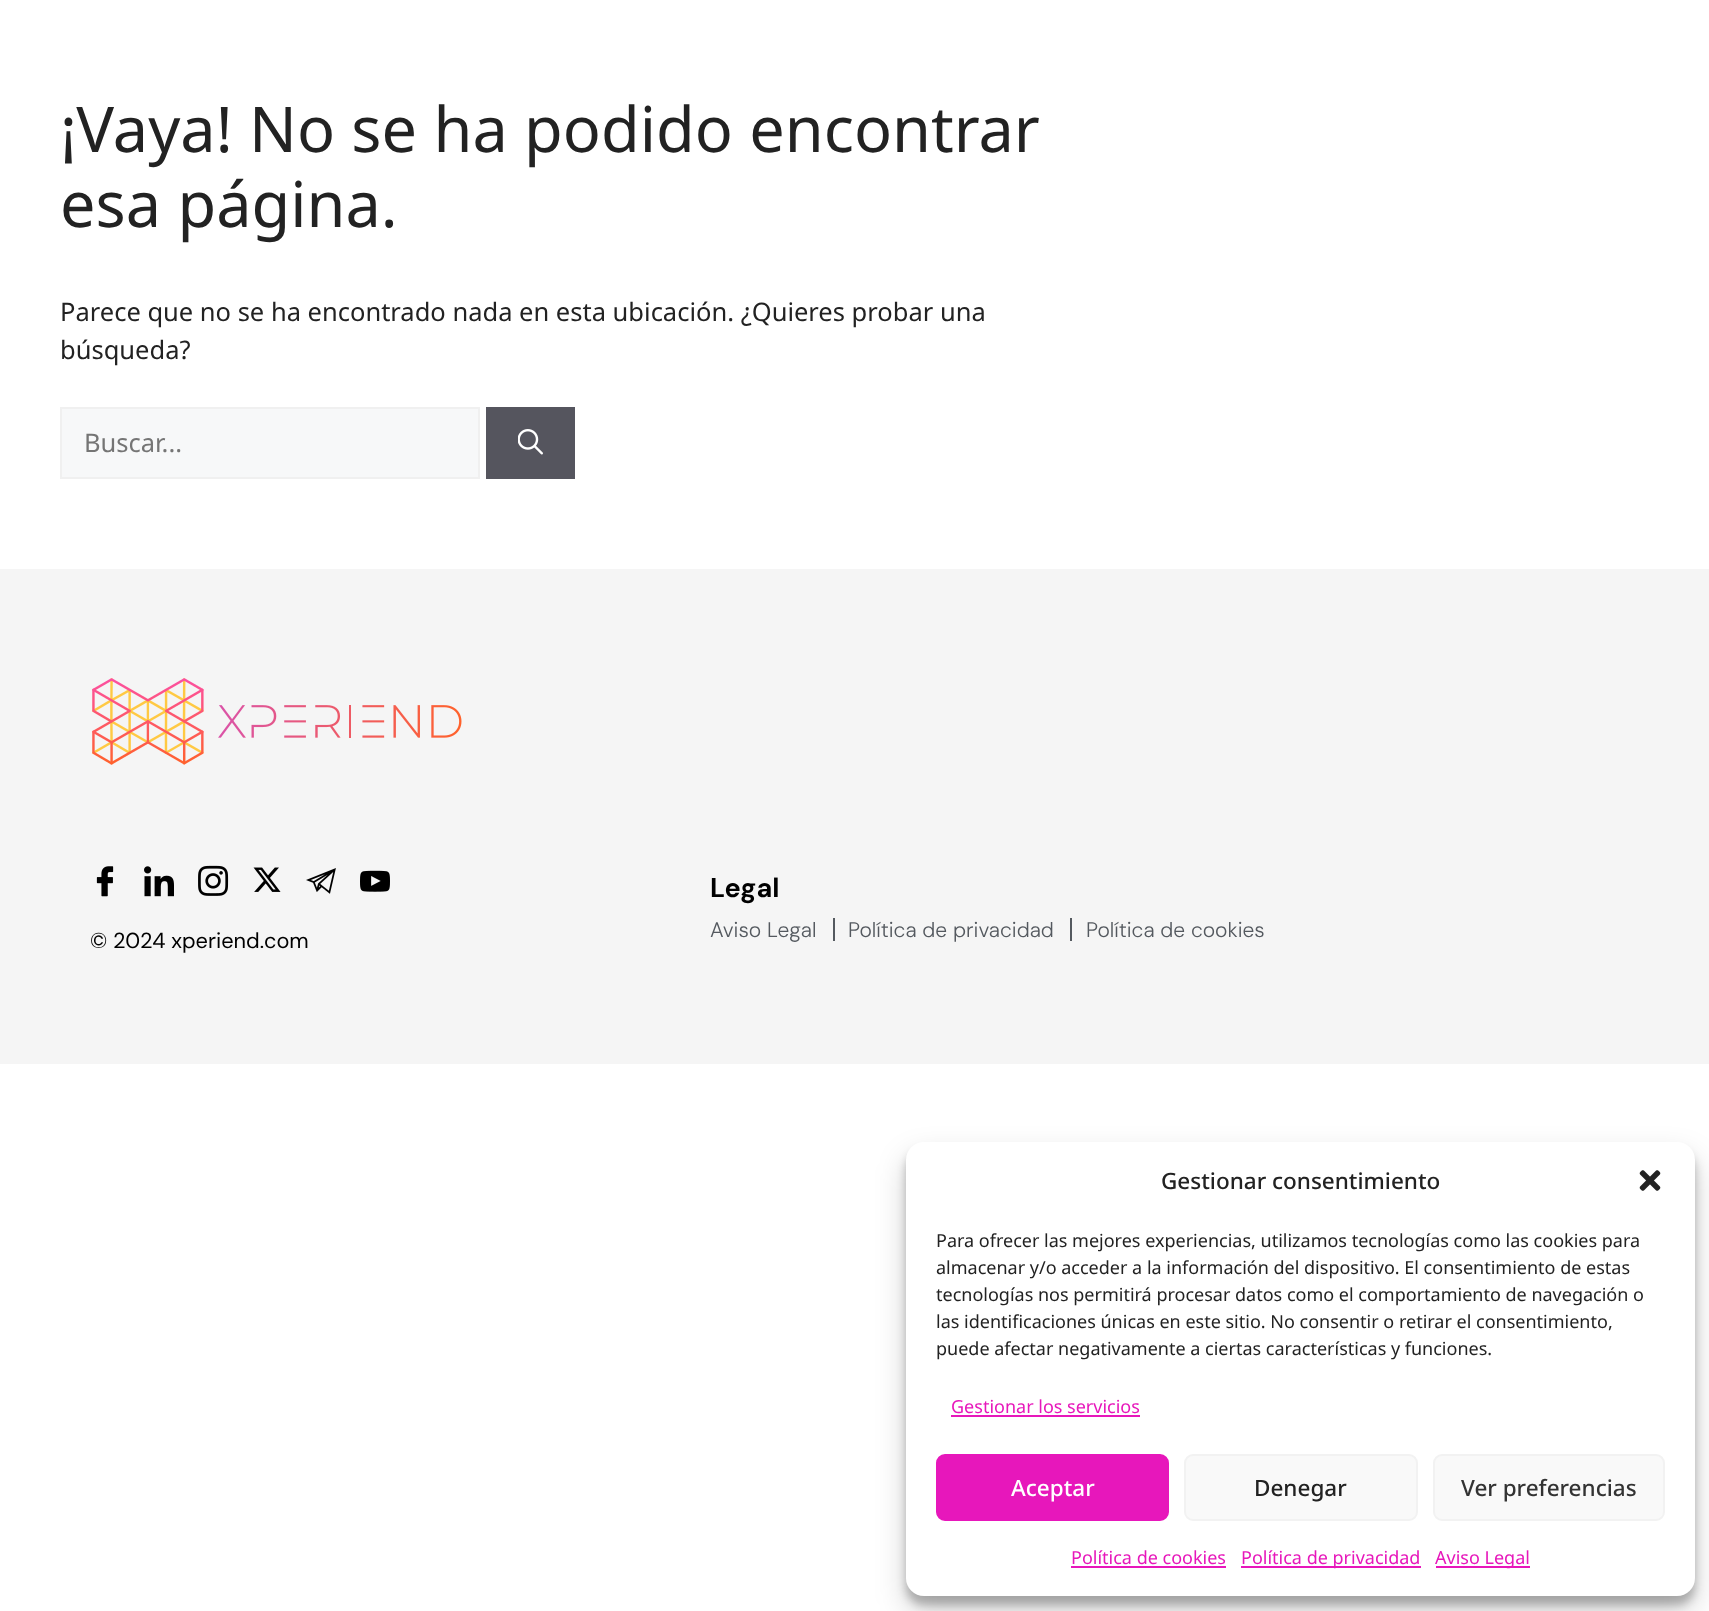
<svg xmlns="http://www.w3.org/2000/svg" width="1709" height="1611">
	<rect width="100%" height="100%" fill="#FFFFFF" />
	<g font-family="Noto Sans" font-size="63" fill="#222222">
		<text x="60" y="152">¡Vaya! No se ha podido encontrar</text>
		<text x="60" y="227">esa página.</text>
	</g>
	<g font-family="Noto Sans" font-size="25.5" fill="#222222">
		<text x="60" y="321">Parece que no se ha encontrado nada en esta ubicación. ¿Quieres probar una</text>
		<text x="60" y="359">búsqueda?</text>
	</g>
	<rect x="61" y="408" width="418" height="70" fill="#F7F8F9" stroke="#F0F0F0" stroke-width="2" />
	<text x="84" y="452" font-family="Noto Sans" font-size="25.5" fill="#757575">Buscar...</text>
	<rect x="486" y="407" width="89" height="72" fill="#55555E" />
	<image x="518" y="429" width="25" height="26" href="assets/img1.png" />
	<rect x="0" y="569" width="1709" height="495" fill="#F5F5F5" />
	<image x="92" y="678" width="370" height="87" href="assets/img2.png" />
	<image x="96" y="866" width="18" height="31" href="assets/img3.png" />
	<image x="144" y="866" width="30" height="31" href="assets/img4.png" />
	<image x="198" y="865" width="31" height="31" href="assets/img5.png" />
	<image x="253" y="867" width="28" height="25" href="assets/img6.png" />
	<image x="306" y="868" width="30" height="26" href="assets/img7.png" />
	<image x="360" y="870" width="30" height="22" href="assets/img8.png" />
	<text x="90" y="948" font-family="DM Sans" font-size="21.75" fill="#000000">© 2024 xperiend.com</text>
	<text x="710" y="897" font-family="DM Sans" font-size="27" font-weight="700" fill="#000000">Legal</text>
	<text x="710" y="937" font-family="DM Sans" font-size="21" font-weight="300" fill="#54595F">Aviso Legal</text>
	<rect x="833" y="918" width="2" height="23" fill="#54595F" />
	<text x="848" y="937" font-family="DM Sans" font-size="21" font-weight="300" fill="#54595F">Política de privacidad</text>
	<rect x="1070" y="918" width="2" height="23" fill="#54595F" />
	<text x="1086" y="937" font-family="DM Sans" font-size="21" font-weight="300" fill="#54595F">Política de cookies</text>
	<rect x="906" y="1151" width="789" height="454" rx="18" fill="#000000" fill-opacity="0.23" filter="blur(4.5px)" />
	<rect x="906" y="1157" width="789" height="454" rx="18" fill="#000000" fill-opacity="0.19" filter="blur(15px)" />
	<rect x="906" y="1142" width="789" height="454" rx="18" fill="#FFFFFF" />
	<text x="1161" y="1189" font-family="Noto Sans" font-size="22.5" font-weight="500" fill="#222222">Gestionar consentimiento</text>
	<image x="1639" y="1170" width="22" height="21" href="assets/img9.png" />
	<g font-family="Noto Sans" font-size="18" fill="#222222">
		<text x="936" y="1247">Para ofrecer las mejores experiencias, utilizamos tecnologías como las cookies para</text>
		<text x="936" y="1274">almacenar y/o acceder a la información del dispositivo. El consentimiento de estas</text>
		<text x="936" y="1301">tecnologías nos permitirá procesar datos como el comportamiento de navegación o</text>
		<text x="936" y="1328">las identificaciones únicas en este sitio. No consentir o retirar el consentimiento,</text>
		<text x="936" y="1355">puede afectar negativamente a ciertas características y funciones.</text>
	</g>
	<text x="951" y="1413" font-family="Noto Sans" font-size="18" fill="#E717BB">Gestionar los servicios</text>
	<rect x="951" y="1415" width="189" height="2" fill="#E717BB" />
	<rect x="937" y="1455" width="231" height="65" rx="8" fill="#E717BB" stroke="#E717BB" stroke-width="2" />
	<text x="1011" y="1496" font-family="Noto Sans" font-size="22.5" font-weight="500" fill="#FFFFFF">Aceptar</text>
	<rect x="1185" y="1455" width="232" height="65" rx="8" fill="#F9F9F9" stroke="#F2F2F2" stroke-width="2" />
	<text x="1254" y="1496" font-family="Noto Sans" font-size="22.5" font-weight="500" fill="#222222">Denegar</text>
	<rect x="1434" y="1455" width="230" height="65" rx="8" fill="#F9F9F9" stroke="#F2F2F2" stroke-width="2" />
	<text x="1461" y="1496" font-family="Noto Sans" font-size="22.5" font-weight="500" fill="#333333">Ver preferencias</text>
	<text x="1071" y="1564" font-family="Noto Sans" font-size="18" fill="#E717BB">Política de cookies</text>
	<rect x="1071" y="1566" width="155" height="2" fill="#E717BB" />
	<rect x="1241" y="1566" width="180" height="2" fill="#E717BB" />
	<text x="1241" y="1564" font-family="Noto Sans" font-size="18" fill="#E717BB">Política de privacidad</text>
	<rect x="1436" y="1566" width="94" height="2" fill="#E717BB" />
	<text x="1435" y="1564" font-family="Noto Sans" font-size="18" fill="#E717BB">Aviso Legal</text>
</svg>
